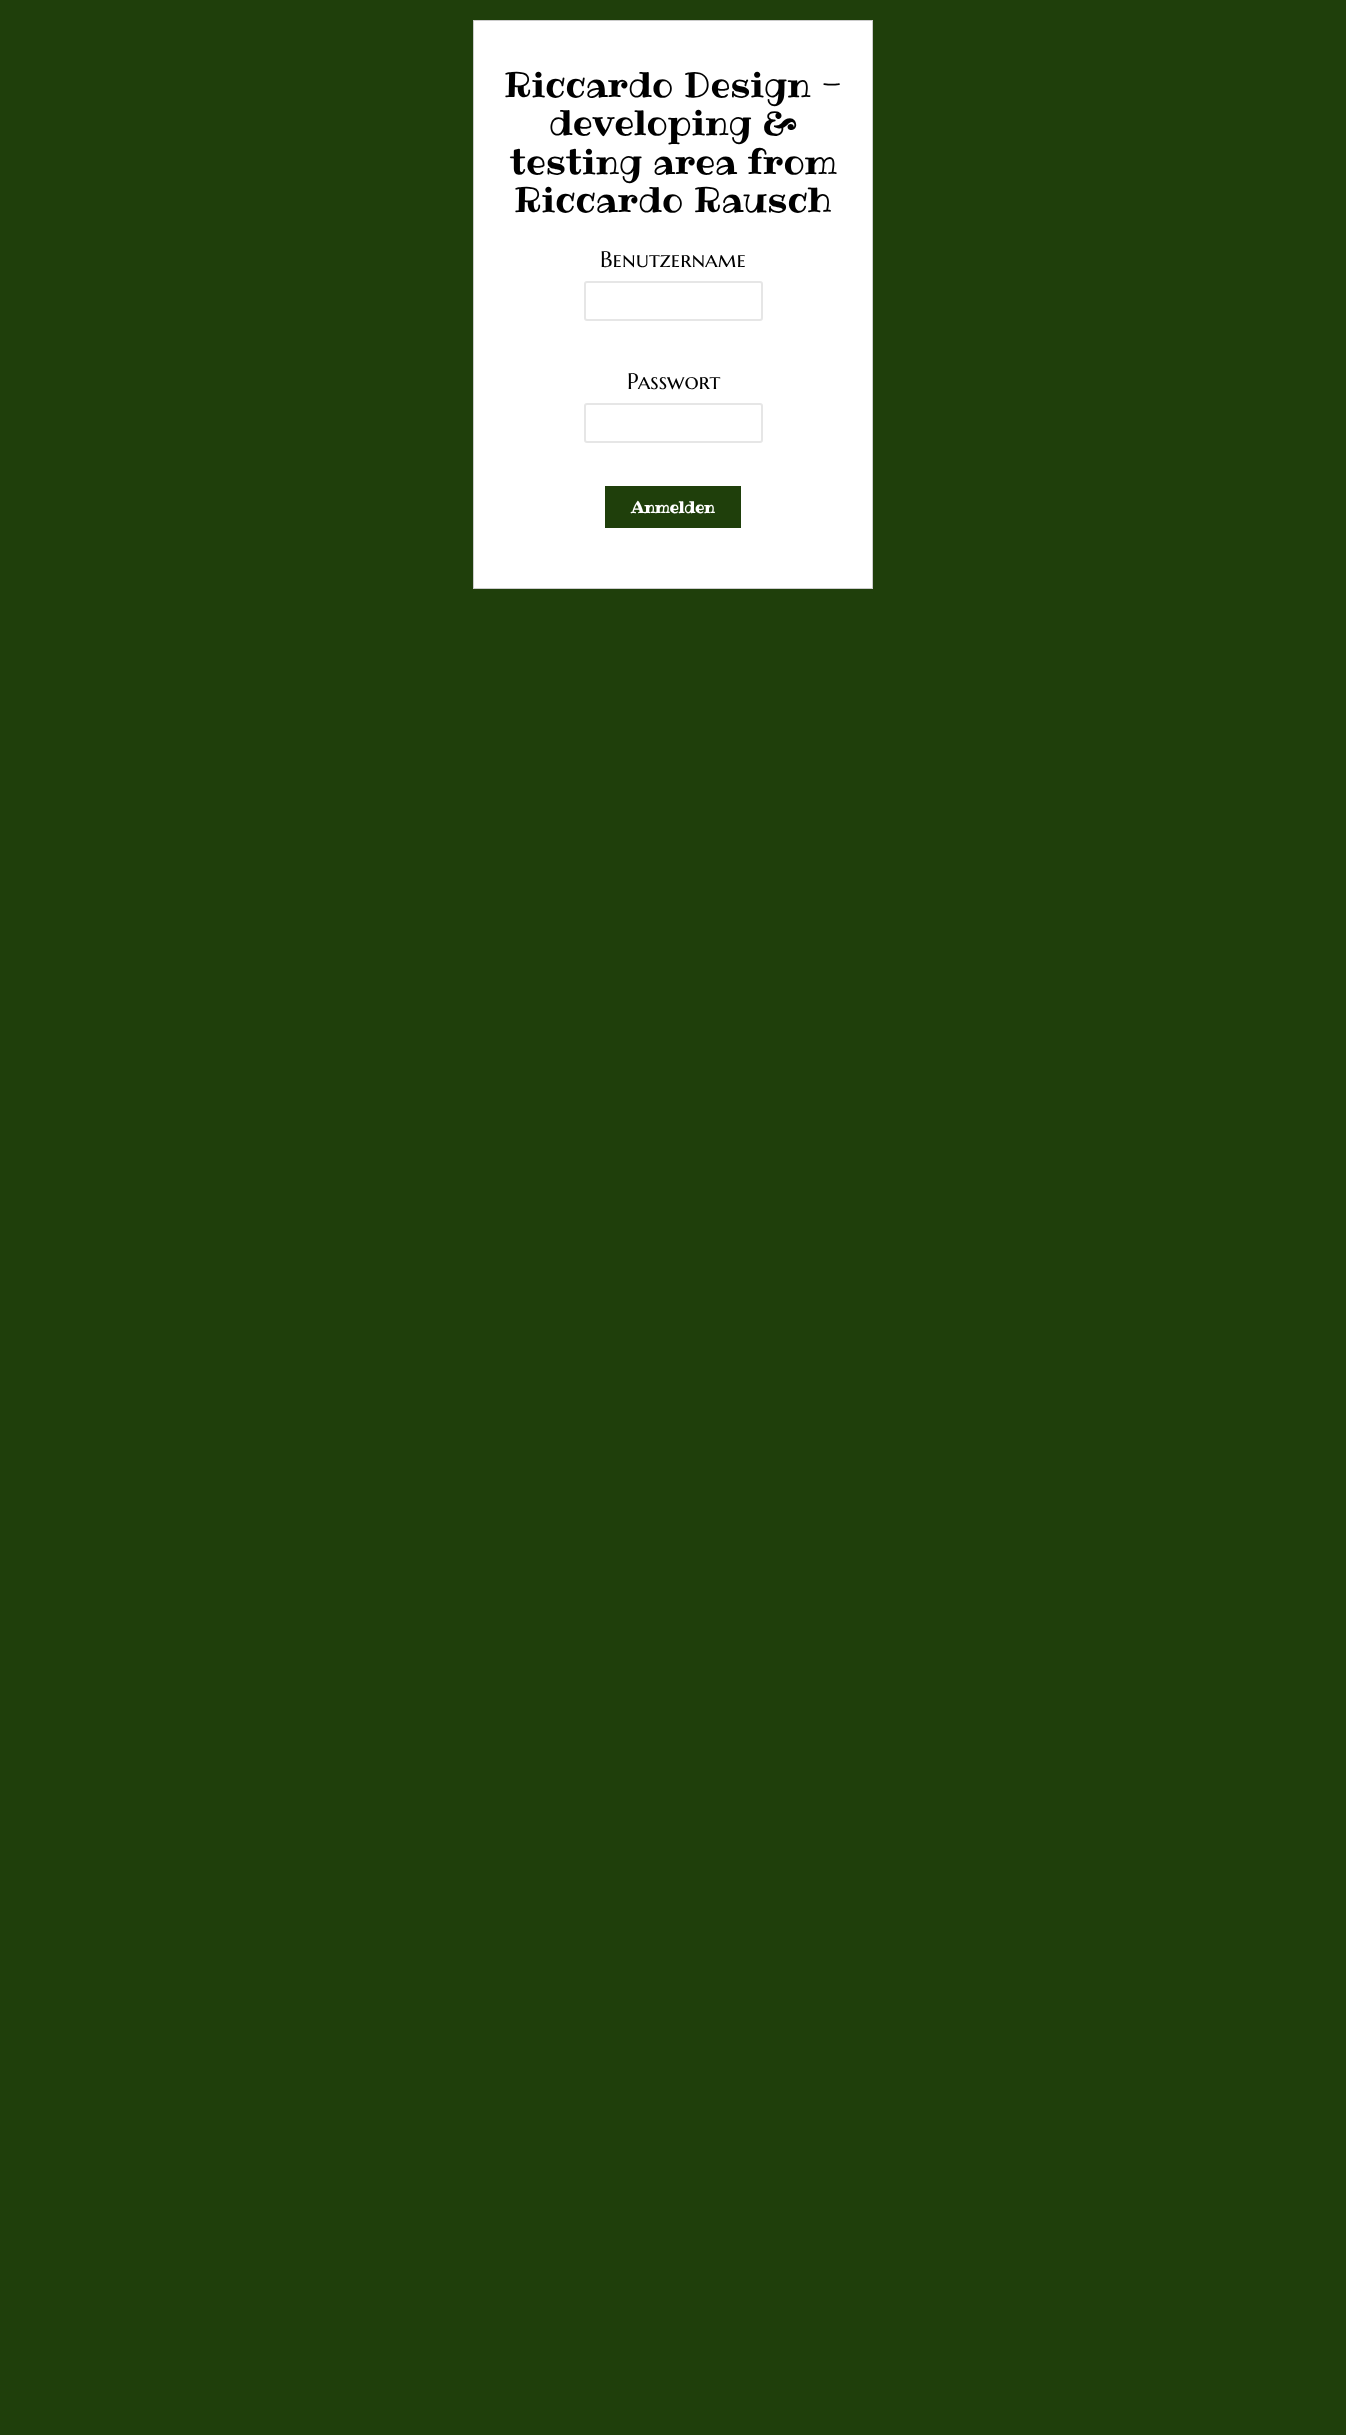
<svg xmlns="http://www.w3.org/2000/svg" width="1346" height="2435">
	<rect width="100%" height="100%" fill="#1F3F0B" />
	<rect x="473.5" y="20.5" width="399" height="568" fill="#FFFFFF" stroke="#CCCCCC" />
	<g font-family="Ribeye" font-size="35.25" fill="#000000">
		<text x="504" y="97">Riccardo Design -</text>
		<text x="549" y="135">developing &amp;</text>
		<text x="510" y="174">testing area from</text>
		<text x="514" y="212">Riccardo Rausch</text>
	</g>
	<text x="600" y="267" font-family="Marcellus SC" font-size="22.5" fill="#000000">Benutzername</text>
	<rect x="585" y="282" width="177" height="38" rx="2" fill="none" stroke="#E6E6E6" stroke-width="2" />
	<text x="627" y="389" font-family="Marcellus SC" font-size="22.5" fill="#000000">Passwort</text>
	<rect x="585" y="404" width="177" height="38" rx="2" fill="none" stroke="#E6E6E6" stroke-width="2" />
	<rect x="605" y="486" width="136" height="42" fill="#1F3F0B" />
	<text x="631" y="513" font-family="Ribeye" font-size="16" font-weight="700" fill="#FFFFFF">Anmelden</text>
</svg>
